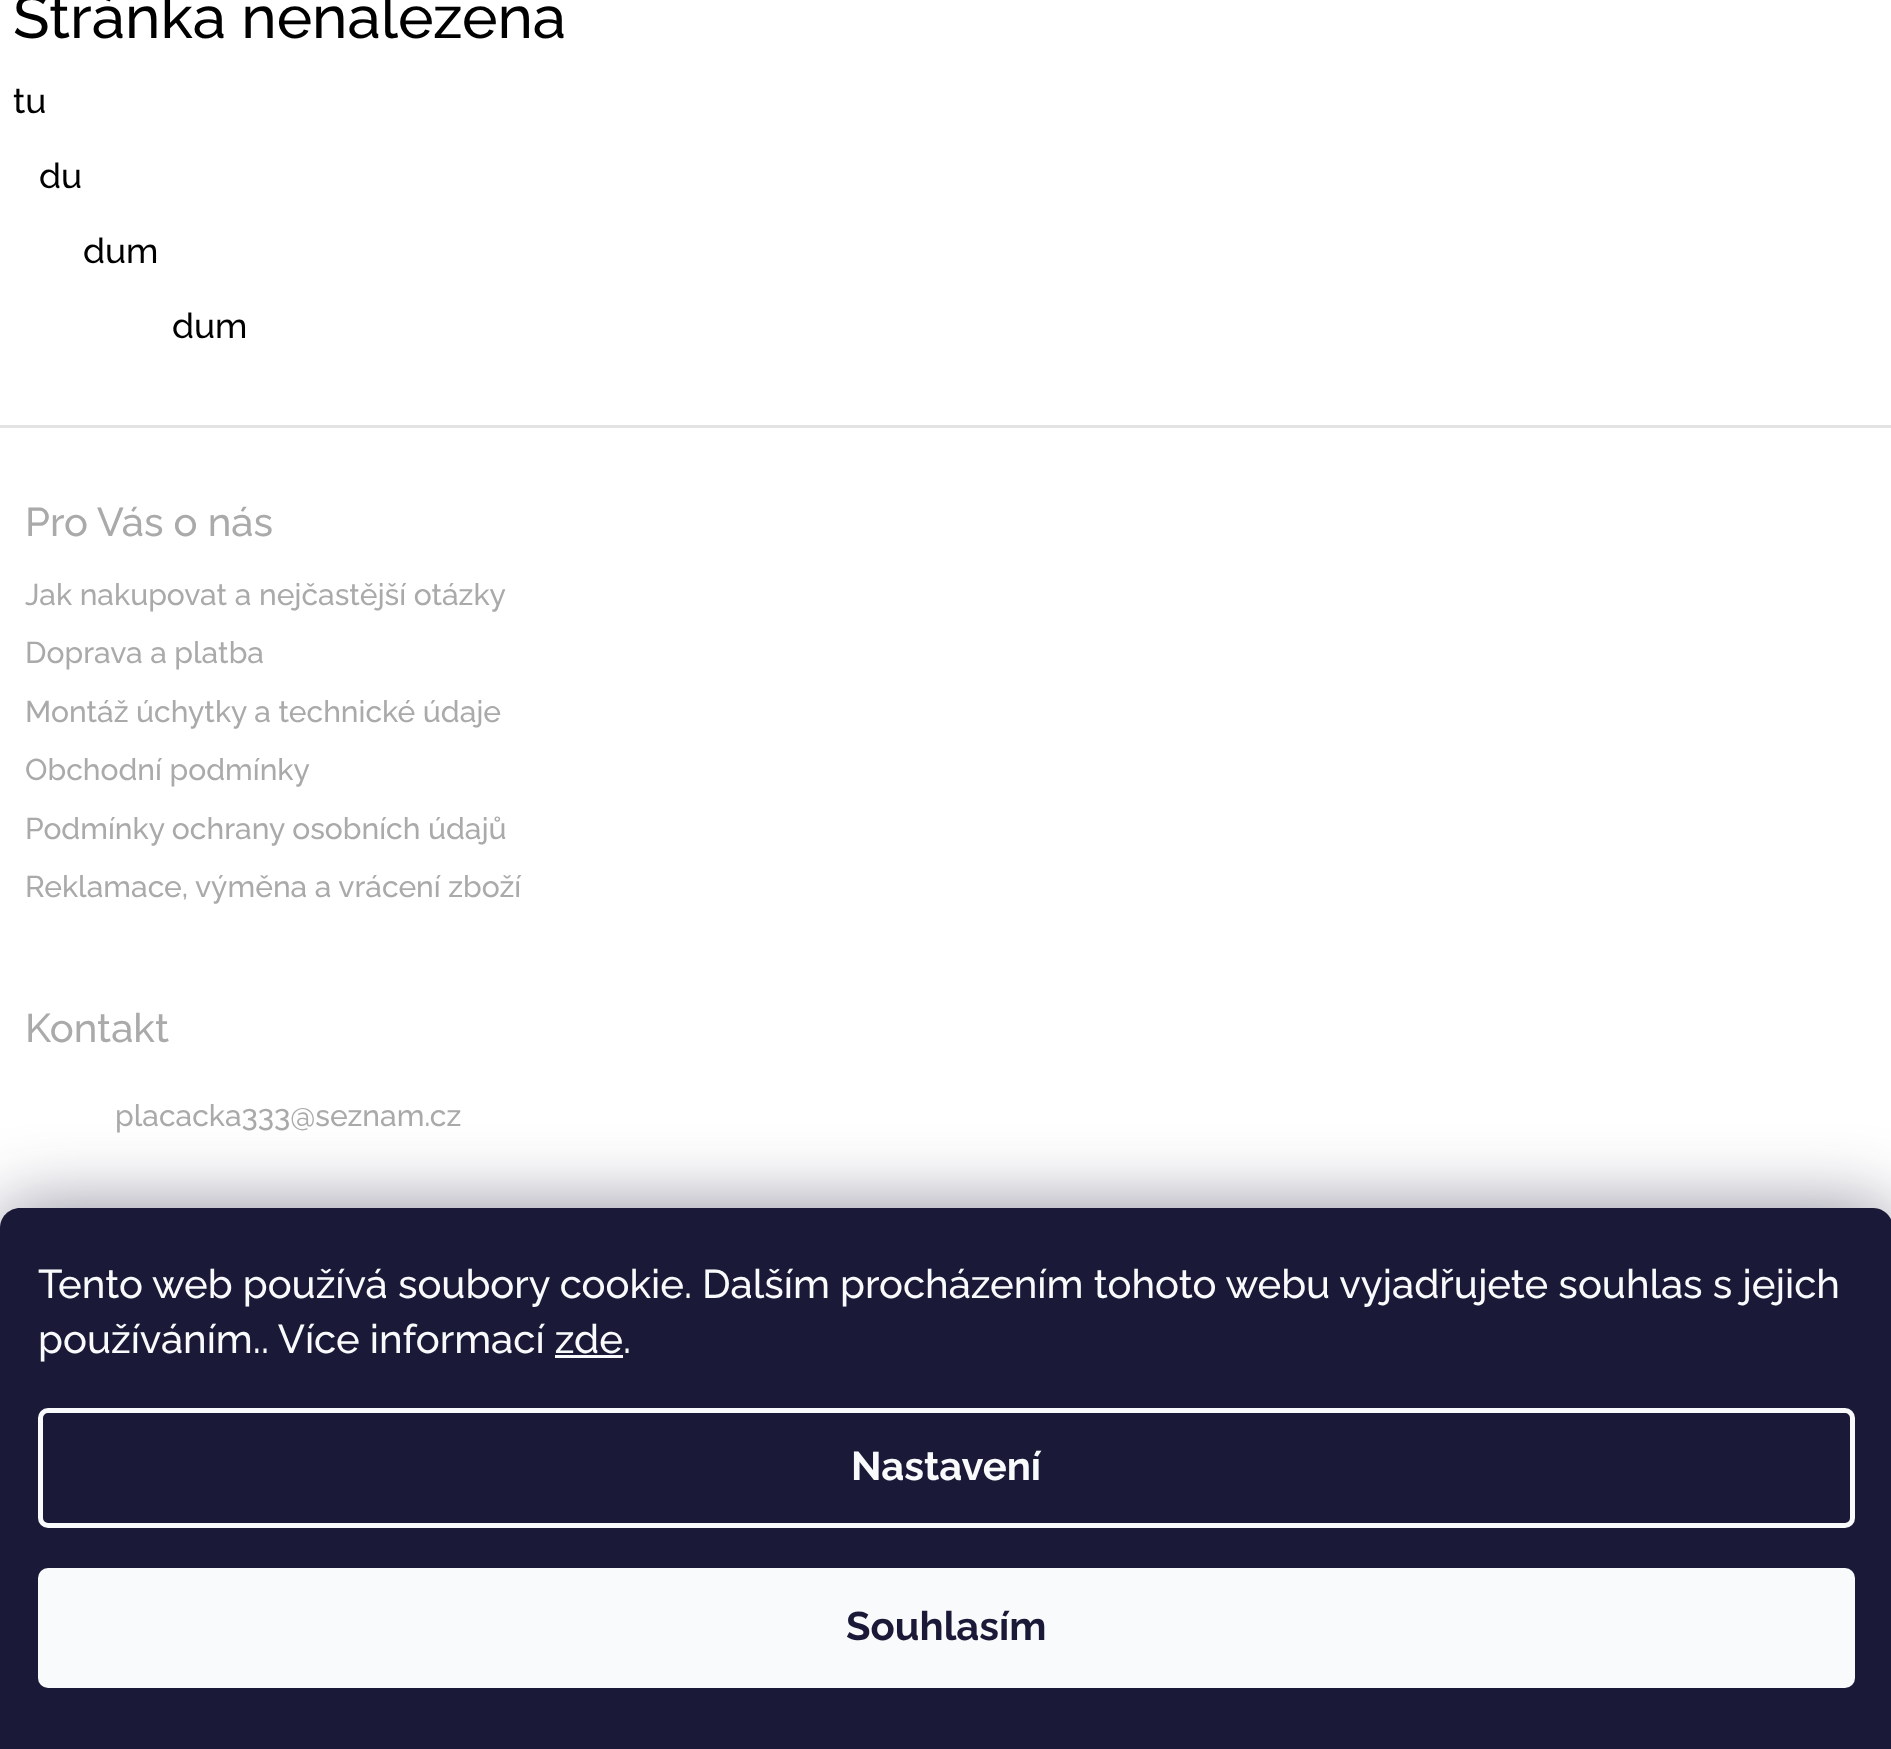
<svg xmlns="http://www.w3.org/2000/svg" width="1891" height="1749">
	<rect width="100%" height="100%" fill="#FFFFFF" />
	<text x="13" y="38" font-family="Raleway" font-size="60" font-weight="500" fill="#000000">Stránka nenalezena</text>
	<g font-family="Raleway" font-size="35" font-weight="500" fill="#000000">
		<text x="13" y="113">tu</text>
		<text x="39" y="188">du</text>
		<text x="83" y="263">dum</text>
		<text x="172" y="338">dum</text>
	</g>
	<rect x="0" y="425" width="1891" height="3" fill="#E3E3E3" />
	<text x="25" y="536" font-family="Raleway" font-size="40" font-weight="500" fill="#AAAAAA">Pro Vás o nás</text>
	<g font-family="Raleway" font-size="30" font-weight="500" fill="#AAAAAA">
		<text x="25" y="605">Jak nakupovat a nejčastější otázky</text>
		<text x="25" y="663">Doprava a platba</text>
		<text x="25" y="722">Montáž úchytky a technické údaje</text>
		<text x="25" y="780">Obchodní podmínky</text>
		<text x="25" y="839">Podmínky ochrany osobních údajů</text>
		<text x="25" y="897">Reklamace, výměna a vrácení zboží</text>
	</g>
	<text x="25" y="1042" font-family="Raleway" font-size="40" font-weight="500" fill="#AAAAAA">Kontakt</text>
	<text x="115" y="1126" font-family="Raleway" font-size="30" font-weight="500" fill="#AAAAAA">placacka333@seznam.cz</text>
	<rect x="0" y="1208" width="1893" height="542" rx="20" fill="#1B1939" fill-opacity="0.5" filter="blur(37.5px)" />
	<path d="M20 1208H1873C1884 1208 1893 1217 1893 1228V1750H0V1228C0 1217 9 1208 20 1208Z" fill="#1A1937" />
	<g font-family="Raleway" font-size="40" font-weight="500" fill="#F8FAFB">
		<text x="38" y="1298">Tento web používá soubory cookie. Dalším procházením tohoto webu vyjadřujete souhlas s jejich</text>
		<text x="38" y="1353">používáním.. Více informací zde.</text>
	</g>
	<rect x="555" y="1355" width="68" height="3" fill="#F8FAFB" />
	<rect x="40.5" y="1410.5" width="1812" height="115" rx="7.5" fill="none" stroke="#F8FAFB" stroke-width="5" />
	<text x="851" y="1480" font-family="Raleway" font-size="40" font-weight="700" fill="#F8FAFB">Nastavení</text>
	<rect x="38" y="1568" width="1817" height="120" rx="10" fill="#F8FAFB" />
	<text x="846" y="1640" font-family="Raleway" font-size="40" font-weight="700" fill="#1A1937">Souhlasím</text>
</svg>
